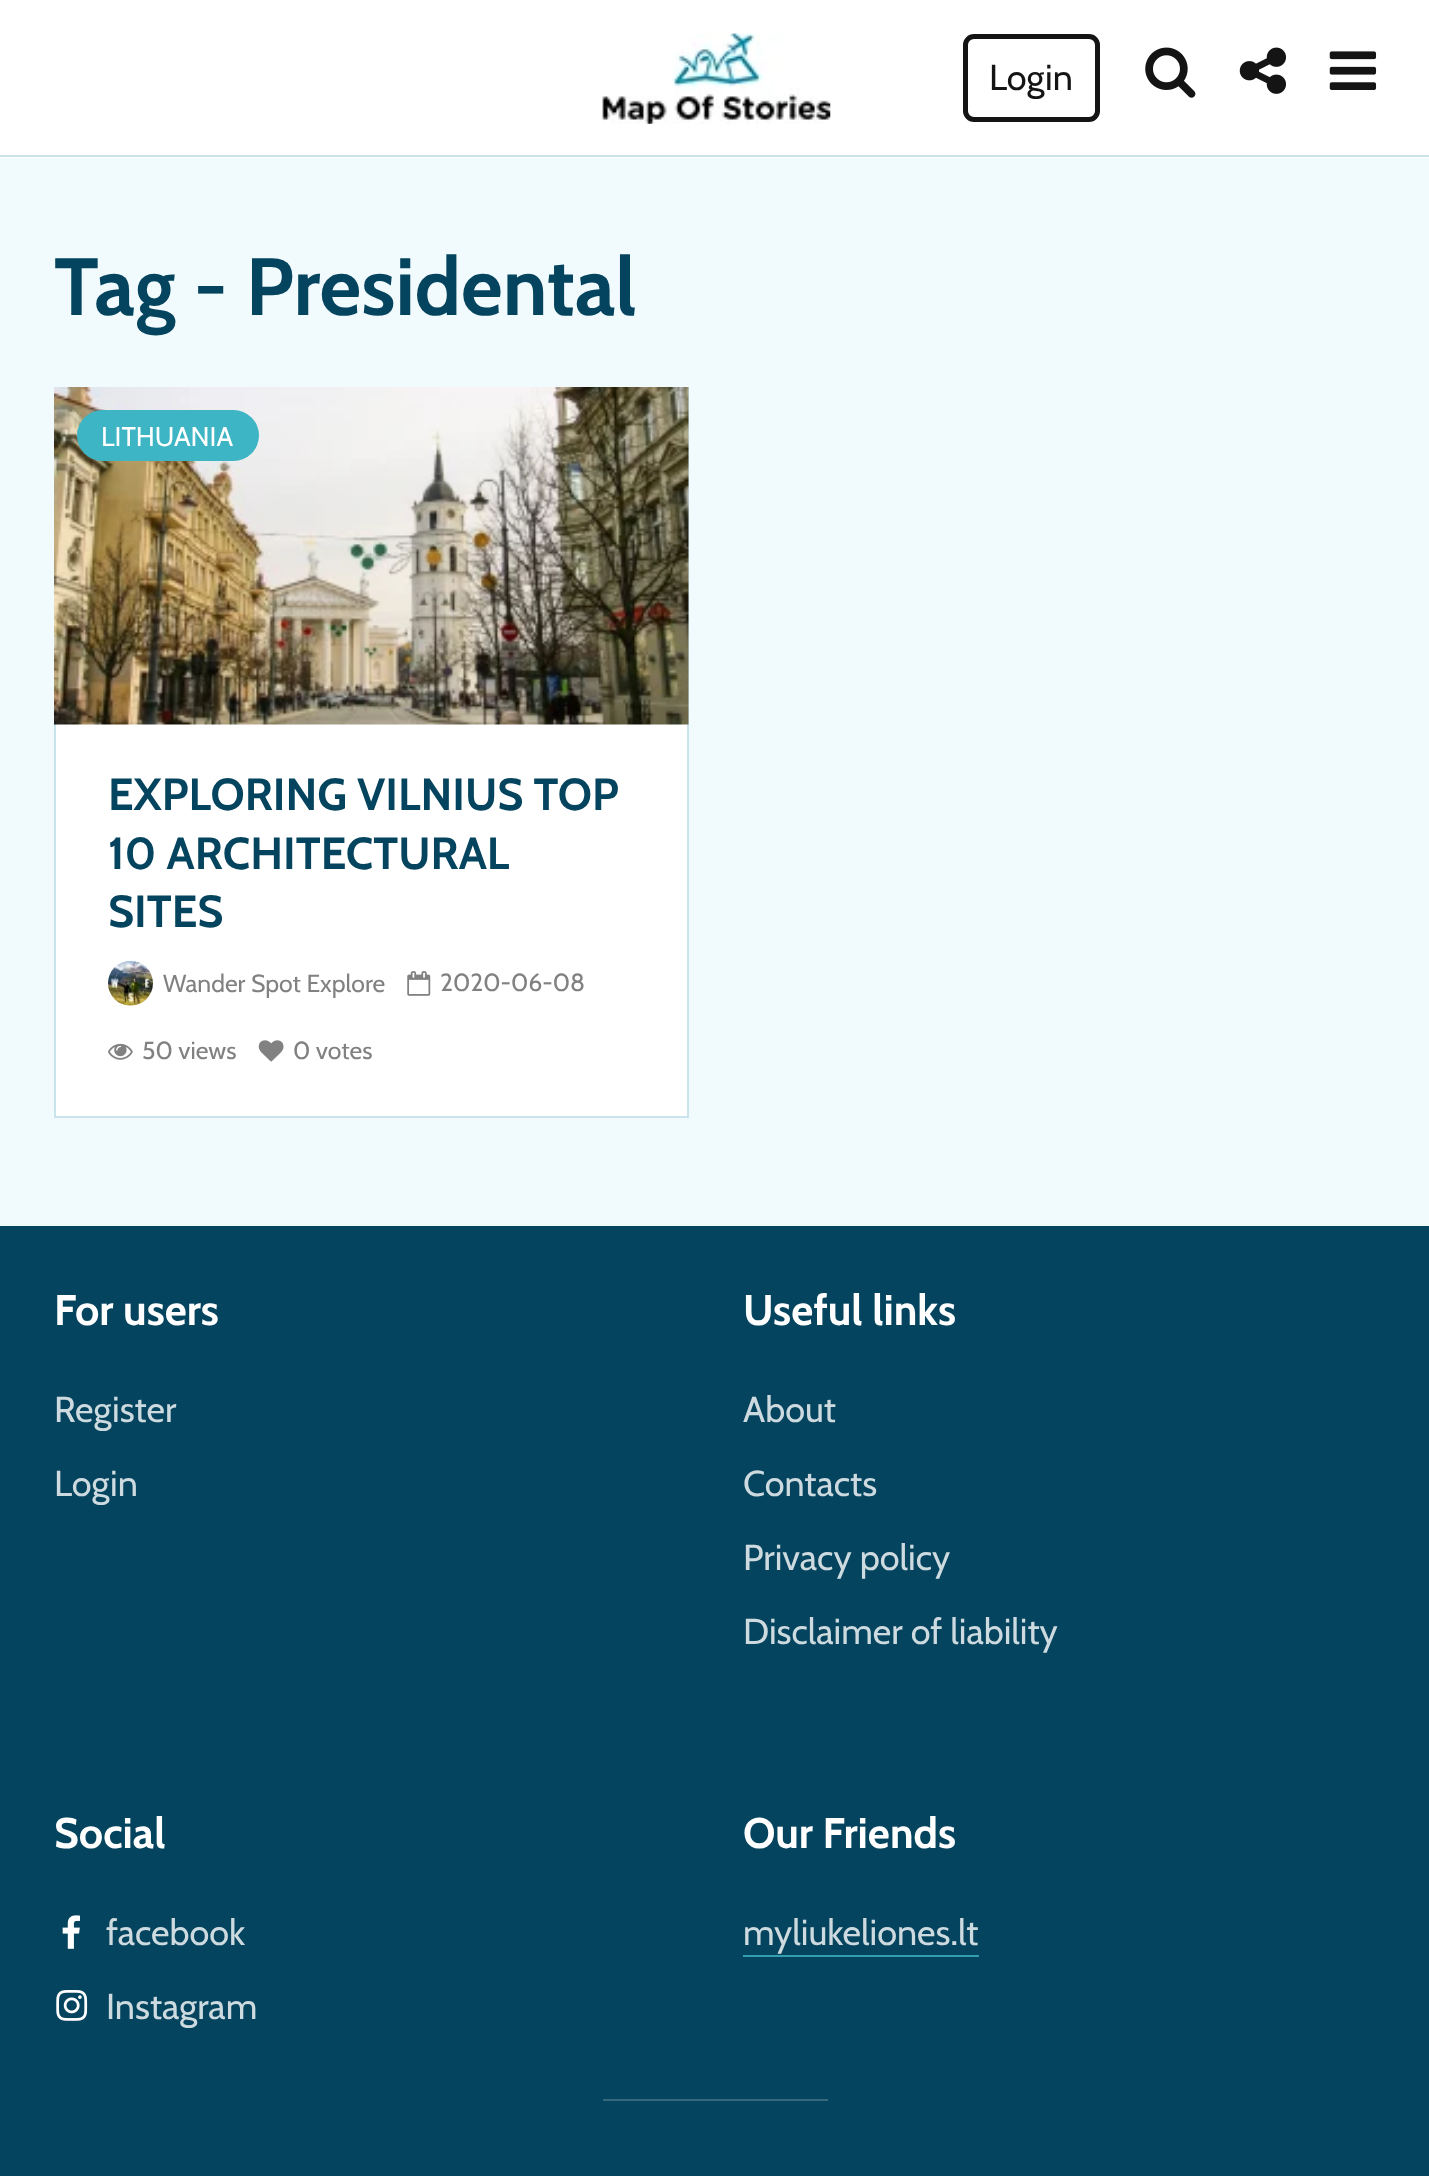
<svg xmlns="http://www.w3.org/2000/svg" width="1429" height="2176">
	<rect width="100%" height="100%" fill="#F1FAFC" />
	<rect x="0" y="0" width="1429" height="158" fill="#FFFFFF" />
	<rect x="0" y="155" width="1429" height="2" fill="#C9E4EB" />
	<image x="602" y="33" width="229" height="91" href="assets/img1.png" />
	<rect x="965.5" y="36.5" width="132" height="83" rx="8.5" fill="none" stroke="#141414" stroke-width="5" />
	<text x="989" y="90" font-family="Cabin" font-size="36" fill="#141414">Login</text>
	<image x="1145" y="47" width="51" height="51" href="assets/img2.png" />
	<image x="1239" y="47" width="47" height="47" href="assets/img3.png" />
	<image x="1329" y="51" width="48" height="39" href="assets/img4.png" />
	<text x="54" y="315" font-family="Cabin" font-size="81" font-weight="700" fill="#05445E">Tag - Presidental</text>
	<rect x="56" y="724" width="631" height="392" fill="#FFFFFF" />
	<rect x="55" y="388" width="633" height="729" fill="none" stroke="#C9E4EB" stroke-width="2" />
	<image x="54" y="387" width="635" height="338" href="assets/img5.png" />
	<rect x="77" y="410" width="182" height="51" rx="25.5" fill="#3DB5C4" />
	<text x="101" y="446" font-family="Cabin" font-size="27" fill="#FFFFFF">LITHUANIA</text>
	<g font-family="Cabin" font-size="45" font-weight="700" fill="#05445E">
		<text x="108" y="810">EXPLORING VILNIUS TOP</text>
		<text x="108" y="869">10 ARCHITECTURAL</text>
		<text x="108" y="927">SITES</text>
	</g>
	<image x="108" y="960" width="45" height="46" href="assets/img6.png" />
	<text x="163" y="992" font-family="Cabin" font-size="24.75" fill="#818181">Wander Spot Explore</text>
	<image x="407" y="971" width="24" height="25" href="assets/img7.png" />
	<text x="440" y="991" font-family="Cabin" font-size="24.75" fill="#818181">2020-06-08</text>
	<image x="108" y="1043" width="25" height="17" href="assets/img8.png" />
	<text x="142" y="1059" font-family="Cabin" font-size="24.75" fill="#818181">50 views</text>
	<image x="258" y="1040" width="26" height="22" href="assets/img9.png" />
	<text x="293" y="1059" font-family="Cabin" font-size="24.75" fill="#818181">0 votes</text>
	<rect x="0" y="1226" width="1429" height="950" fill="#05445E" />
	<text x="54" y="1325" font-family="Cabin" font-size="42.75" font-weight="700" fill="#FFFFFF">For users</text>
	<g font-family="Cabin" font-size="36" fill="#CDDADF">
		<text x="54" y="1422">Register</text>
		<text x="54" y="1496">Login</text>
	</g>
	<text x="743" y="1325" font-family="Cabin" font-size="42.75" font-weight="700" fill="#FFFFFF">Useful links</text>
	<g font-family="Cabin" font-size="36" fill="#CDDADF">
		<text x="743" y="1422">About</text>
		<text x="743" y="1496">Contacts</text>
		<text x="743" y="1570">Privacy policy</text>
		<text x="743" y="1644">Disclaimer of liability</text>
	</g>
	<text x="54" y="1848" font-family="Cabin" font-size="42.75" font-weight="700" fill="#FFFFFF">Social</text>
	<image x="62" y="1915" width="18" height="34" href="assets/img10.png" />
	<text x="106" y="1945" font-family="Cabin" font-size="36" fill="#CDDADF">facebook</text>
	<image x="56" y="1990" width="32" height="31" href="assets/img11.png" />
	<text x="106" y="2019" font-family="Cabin" font-size="36" fill="#CDDADF">Instagram</text>
	<text x="743" y="1848" font-family="Cabin" font-size="42.75" font-weight="700" fill="#FFFFFF">Our Friends</text>
	<text x="743" y="1945" font-family="Cabin" font-size="36" fill="#CDDADF">myliukeliones.lt</text>
	<rect x="743" y="1955" width="236" height="2" fill="#329EB0" />
	<rect x="603" y="2099" width="225" height="2" fill="#37697E" />
</svg>
